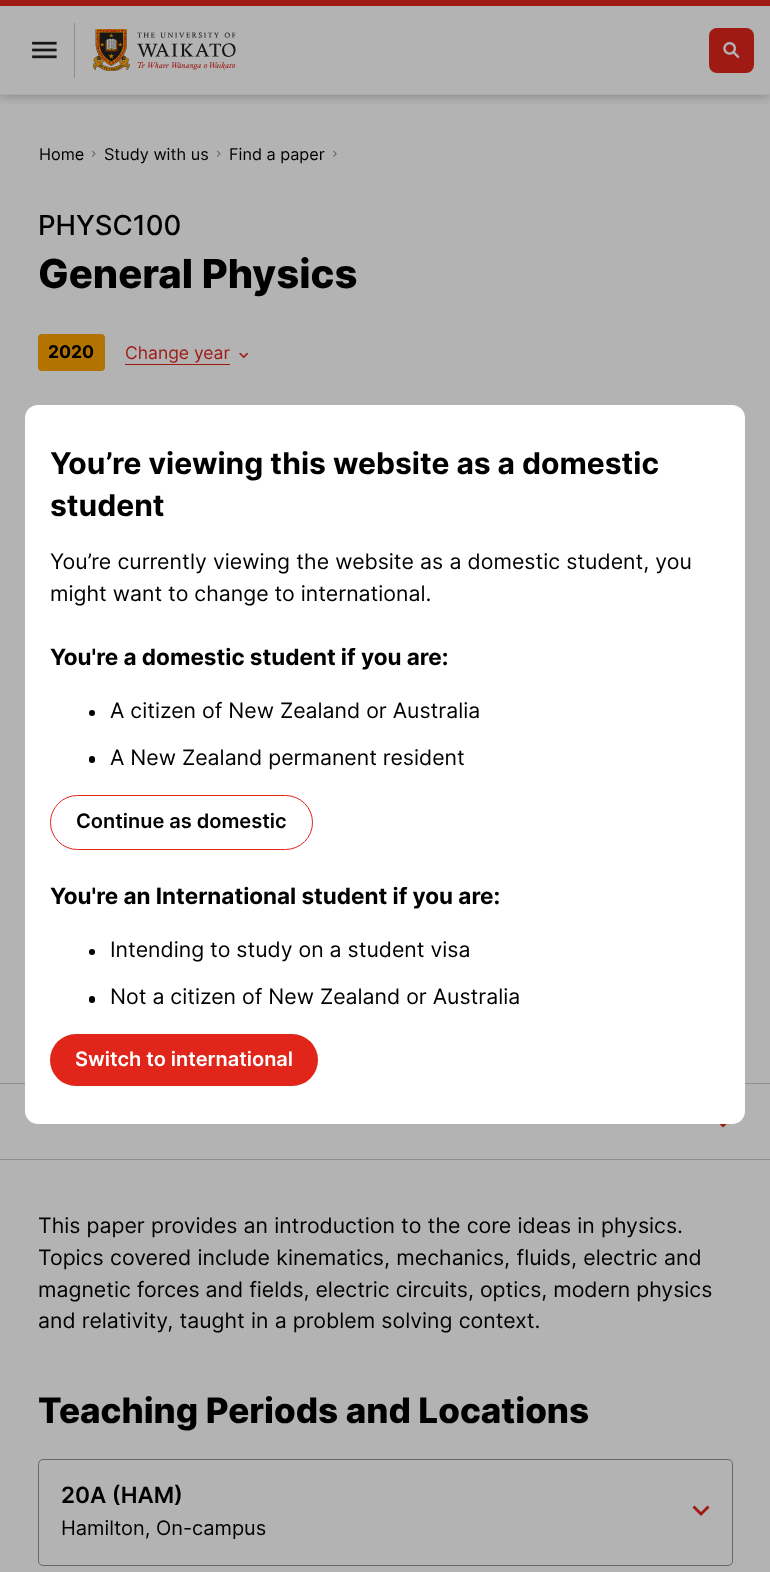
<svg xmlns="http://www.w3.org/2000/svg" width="770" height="1572">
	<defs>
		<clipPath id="clip1"><rect x="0" y="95" width="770" height="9" /></clipPath>
	</defs>
	<rect width="100%" height="100%" fill="#B3B3B3" />
	<g clip-path="url(#clip1)">
		<rect x="0" y="0" width="770" height="95" fill="#000000" fill-opacity="0.3" filter="blur(6px)" />
	</g>
	<rect x="0" y="0" width="770" height="6" fill="#9E1A13" />
	<rect x="0" y="94" width="770" height="1" fill="#ABABAB" />
	<rect x="74" y="23" width="1" height="55" fill="#8F8F8F" />
	<image x="32" y="41" width="25" height="18" href="assets/img1.png" />
	<image x="93" y="29" width="143" height="42" href="assets/img2.png" />
	<rect x="709" y="28" width="45" height="45" rx="8" fill="#9E1A13" />
	<image x="723" y="42" width="17" height="16" href="assets/img3.png" />
	<rect x="0" y="1083" width="770" height="1" fill="#8F8F8F" />
	<text x="39" y="160" font-family="Inter" font-size="16.25" fill="#000000">Home</text>
	<image x="91" y="150" width="5" height="7" href="assets/img4.png" />
	<text x="104" y="160" font-family="Inter" font-size="16.25" fill="#000000">Study with us</text>
	<image x="216" y="150" width="5" height="7" href="assets/img4.png" />
	<text x="229" y="160" font-family="Inter" font-size="16.25" fill="#000000">Find a paper</text>
	<image x="333" y="150" width="4" height="7" href="assets/img5.png" />
	<text x="38" y="235" font-family="Inter" font-size="27.5" font-weight="500" fill="#000000">PHYSC100</text>
	<text x="38" y="288" font-family="Inter" font-size="40" font-weight="800" fill="#000000">General Physics</text>
	<rect x="38" y="334" width="67" height="37" rx="4" fill="#B37300" />
	<text x="48" y="358" font-family="Inter" font-size="17.5" font-weight="700" fill="#000000">2020</text>
	<text x="125" y="359" font-family="Inter" font-size="17.5" fill="#9E1A13">Change year</text>
	<rect x="125" y="364" width="105" height="1" fill="#9E1A13" />
	<image x="239" y="353" width="10" height="6" href="assets/img6.png" />
	<rect x="0" y="1159" width="770" height="1" fill="#8F8F8F" />
	<path d="M716 1116L723 1123L730.5 1116L732.5 1118.5L723 1127.5L714 1118.5Z" fill="#9E1A13" />
	<g font-family="Inter" font-size="21.25" fill="#000000">
		<text x="38" y="1233" word-spacing="0.25">This paper provides an introduction to the core ideas in physics.</text>
		<text x="38" y="1265" word-spacing="0.5">Topics covered include kinematics, mechanics, fluids, electric and</text>
		<text x="38" y="1297">magnetic forces and fields, electric circuits, optics, modern physics</text>
		<text x="38" y="1328" word-spacing="0.25">and relativity, taught in a problem solving context.</text>
	</g>
	<text x="38" y="1423" font-family="Inter" font-size="35" font-weight="800" fill="#000000">Teaching Periods and Locations</text>
	<rect x="38.5" y="1459.5" width="694" height="106" rx="4.5" fill="none" stroke="#686868" />
	<text x="61" y="1503" font-family="Inter" font-size="22.5" font-weight="600" fill="#000000">20A (HAM)</text>
	<text x="61" y="1535" font-family="Inter" font-size="20" fill="#000000">Hamilton, On-campus</text>
	<path d="M694.5 1505.5L701 1512L707.5 1505.5L709.5 1507.5L701 1516L692.5 1507.5Z" fill="#9E1A13" />
	<rect x="25" y="405" width="720" height="719" rx="13" fill="#FFFFFF" />
	<g font-family="Inter" font-size="30" font-weight="700" fill="#000000">
		<text x="50" y="474">You’re viewing this website as a domestic</text>
		<text x="50" y="516">student</text>
	</g>
	<g font-family="Inter" font-size="21.25" fill="#000000">
		<text x="50" y="569" word-spacing="0.25">You’re currently viewing the website as a domestic student, you</text>
		<text x="50" y="601">might want to change to international.</text>
	</g>
	<text x="50" y="665" font-family="Inter" font-size="22.5" font-weight="700" fill="#000000">You're a domestic student if you are:</text>
	<circle cx="92" cy="713" r="3" fill="#000000" />
	<text x="110" y="718" font-family="Inter" font-size="21.25" fill="#000000">A citizen of New Zealand or Australia</text>
	<rect x="89" y="756" width="6" height="7" rx="3" fill="#000000" />
	<text x="110" y="765" font-family="Inter" font-size="21.25" fill="#000000">A New Zealand permanent resident</text>
	<rect x="50.5" y="795.5" width="262" height="54" rx="27" fill="none" stroke="#E1251B" />
	<text x="76" y="828" font-family="Inter" font-size="20" font-weight="600" fill="#000000">Continue as domestic</text>
	<text x="50" y="904" font-family="Inter" font-size="22.5" font-weight="700" fill="#000000">You're an International student if you are:</text>
	<circle cx="92" cy="952" r="3" fill="#000000" />
	<text x="110" y="957" font-family="Inter" font-size="21.25" fill="#000000">Intending to study on a student visa</text>
	<rect x="89" y="996" width="6" height="7" rx="3" fill="#000000" />
	<text x="110" y="1004" font-family="Inter" font-size="21.25" fill="#000000">Not a citizen of New Zealand or Australia</text>
	<rect x="50" y="1034" width="268" height="52" rx="26" fill="#E1251B" />
	<text x="75" y="1066" font-family="Inter" font-size="20" font-weight="600" fill="#FFFFFF">Switch to international</text>
</svg>
